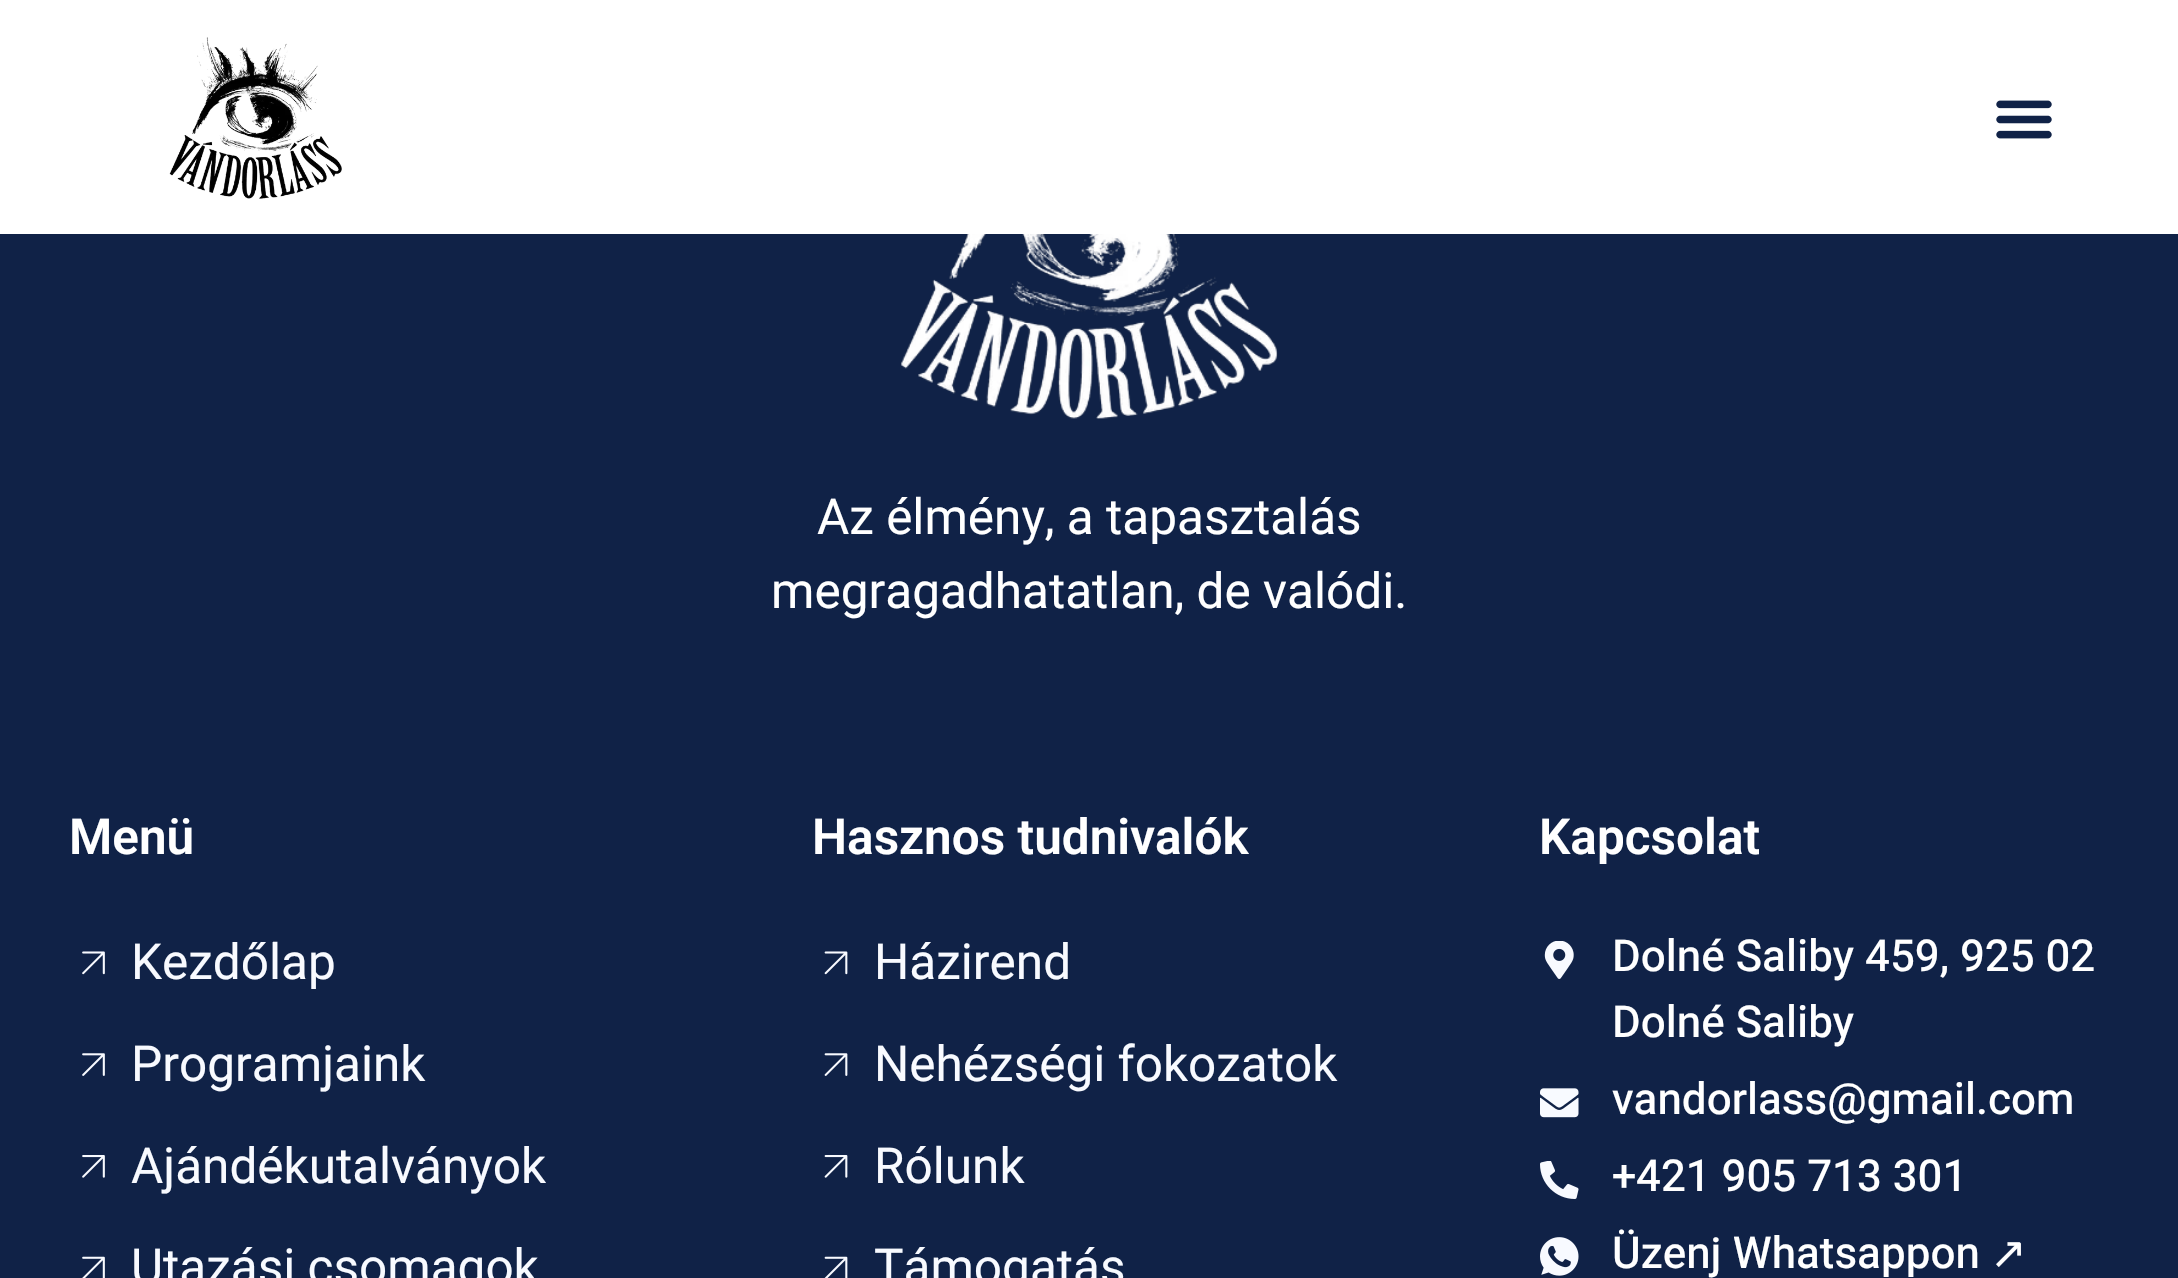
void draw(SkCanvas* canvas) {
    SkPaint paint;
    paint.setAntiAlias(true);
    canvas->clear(0xFF102247);
    paint.setColor(0xFFFFFFFF);
    canvas->drawRect(SkRect::MakeXYWH(0, 0, 2178, 234), paint);
    canvas->drawImageRect(SkImages::DeferredFromEncodedData(SkData::MakeFromFileName("img1.png")), SkRect::MakeXYWH(169, 37, 173, 162), SkSamplingOptions());
    canvas->drawImageRect(SkImages::DeferredFromEncodedData(SkData::MakeFromFileName("img2.png")), SkRect::MakeXYWH(1996, 100, 56, 39), SkSamplingOptions());
    canvas->drawImageRect(SkImages::DeferredFromEncodedData(SkData::MakeFromFileName("img3.png")), SkRect::MakeXYWH(900, 234, 378, 185), SkSamplingOptions());
    SkFont font1(fontMgr->matchFamilyStyle("Roboto", SkFontStyle::Normal()), 49.5f);
    font1.setSubpixel(true);
    canvas->drawString("Az élmény, a tapasztalás", 817, 534, font1, paint);
    canvas->drawString("megragadhatatlan, de valódi.", 771, 608, font1, paint);
    SkFont font2(fontMgr->matchFamilyStyle("Roboto", SkFontStyle(600, SkFontStyle::kNormal_Width, SkFontStyle::kUpright_Slant)), 49.5f);
    font2.setSubpixel(true);
    canvas->drawString("Menü", 69, 854, font2, paint);
    canvas->drawImageRect(SkImages::DeferredFromEncodedData(SkData::MakeFromFileName("img4.png")), SkRect::MakeXYWH(82, 951, 23, 24), SkSamplingOptions());
    paint.setColor(0xFFF8FAFF);
    canvas->drawString("Kezdőlap", 131, 979, font1, paint);
    canvas->drawImageRect(SkImages::DeferredFromEncodedData(SkData::MakeFromFileName("img5.png")), SkRect::MakeXYWH(82, 1053, 23, 23), SkSamplingOptions());
    canvas->drawString("Programjaink", 131, 1081, font1, paint);
    canvas->drawImageRect(SkImages::DeferredFromEncodedData(SkData::MakeFromFileName("img6.png")), SkRect::MakeXYWH(82, 1155, 23, 23), SkSamplingOptions());
    canvas->drawString("Ajándékutalványok", 131, 1183, font1, paint);
    canvas->drawImageRect(SkImages::DeferredFromEncodedData(SkData::MakeFromFileName("img7.png")), SkRect::MakeXYWH(82, 1256, 23, 22), SkSamplingOptions());
    canvas->drawString("Utazási csomagok", 131, 1284, font1, paint);
    paint.setColor(0xFFFFFFFF);
    canvas->drawString("Hasznos tudnivalók", 812, 854, font2, paint);
    canvas->drawImageRect(SkImages::DeferredFromEncodedData(SkData::MakeFromFileName("img8.png")), SkRect::MakeXYWH(824, 951, 24, 24), SkSamplingOptions());
    paint.setColor(0xFFF8FAFF);
    canvas->drawString("Házirend", 874, 979, font1, paint);
    canvas->drawImageRect(SkImages::DeferredFromEncodedData(SkData::MakeFromFileName("img9.png")), SkRect::MakeXYWH(824, 1053, 24, 23), SkSamplingOptions());
    canvas->drawString("Nehézségi fokozatok", 874, 1081, font1, paint);
    canvas->drawImageRect(SkImages::DeferredFromEncodedData(SkData::MakeFromFileName("img10.png")), SkRect::MakeXYWH(824, 1155, 24, 23), SkSamplingOptions());
    canvas->drawString("Rólunk", 874, 1183, font1, paint);
    canvas->drawImageRect(SkImages::DeferredFromEncodedData(SkData::MakeFromFileName("img11.png")), SkRect::MakeXYWH(824, 1256, 24, 22), SkSamplingOptions());
    canvas->drawString("Támogatás", 874, 1284, font1, paint);
    paint.setColor(0xFFFFFFFF);
    canvas->drawString("Kapcsolat", 1539, 854, font2, paint);
    canvas->drawImageRect(SkImages::DeferredFromEncodedData(SkData::MakeFromFileName("img12.png")), SkRect::MakeXYWH(1544, 941, 30, 38), SkSamplingOptions());
    SkFont font3(fontMgr->matchFamilyStyle("Heebo", SkFontStyle(500, SkFontStyle::kNormal_Width, SkFontStyle::kUpright_Slant)), 44);
    font3.setSubpixel(true);
    canvas->drawString("Dolné Saliby 459, 925 02", 1612, 971, font3, paint);
    canvas->drawString("Dolné Saliby", 1612, 1037, font3, paint);
    canvas->drawImageRect(SkImages::DeferredFromEncodedData(SkData::MakeFromFileName("img13.png")), SkRect::MakeXYWH(1540, 1088, 39, 30), SkSamplingOptions());
    canvas->drawString("vandorlass@gmail.com", 1612, 1114, font3, paint);
    canvas->drawImageRect(SkImages::DeferredFromEncodedData(SkData::MakeFromFileName("img14.png")), SkRect::MakeXYWH(1540, 1161, 39, 38), SkSamplingOptions());
    canvas->drawString("+421 905 713 301", 1612, 1191, font3, paint);
    canvas->drawImageRect(SkImages::DeferredFromEncodedData(SkData::MakeFromFileName("img15.png")), SkRect::MakeXYWH(1540, 1237, 39, 39), SkSamplingOptions());
    canvas->drawString("Üzenj Whatsappon", 1612, 1268, font3, paint);
    SkFont font4(fontMgr->matchFamilyStyle("DejaVu Sans", SkFontStyle::Normal()), 44);
    font4.setSubpixel(true);
    canvas->drawString("↗", 1990, 1268, font4, paint);
}
